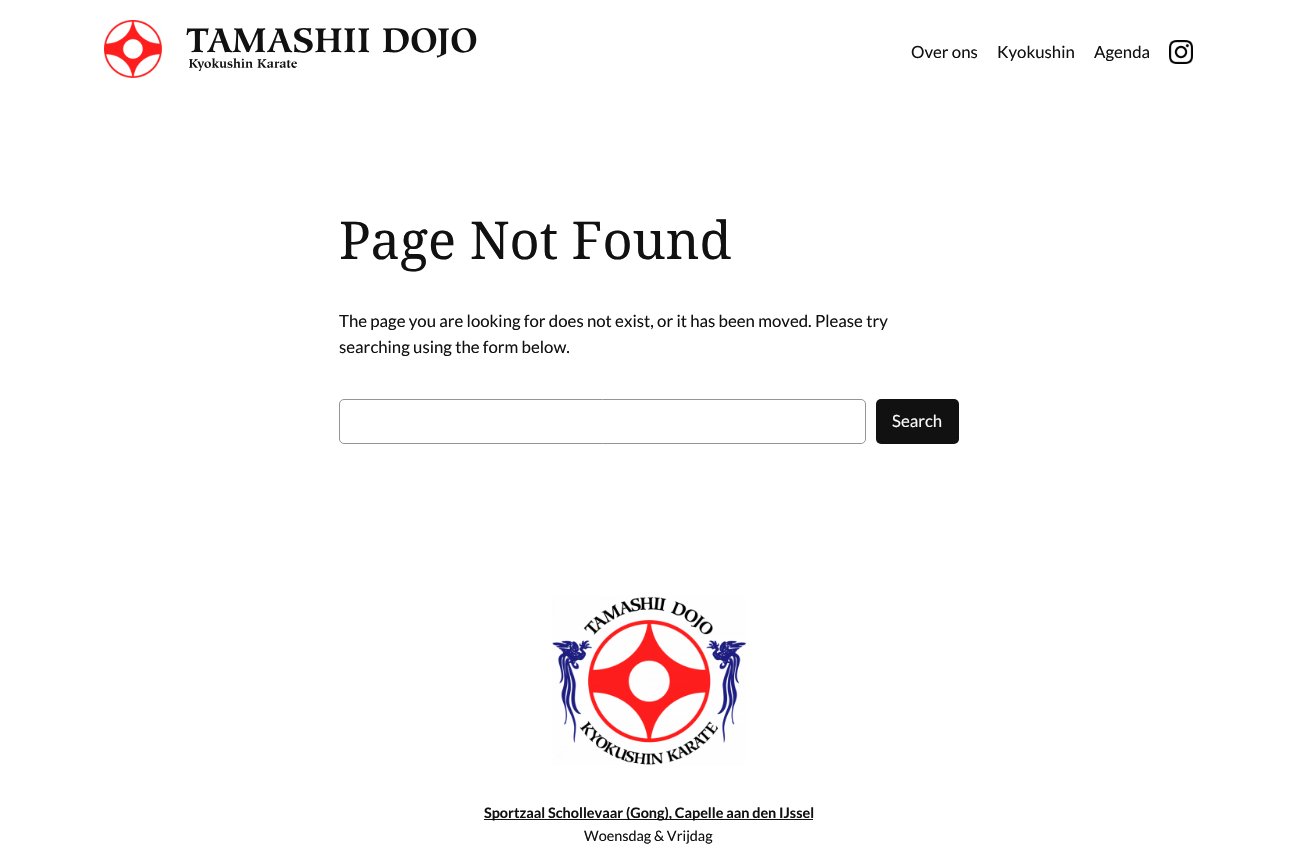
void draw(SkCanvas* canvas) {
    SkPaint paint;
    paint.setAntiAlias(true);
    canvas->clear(0xFFFFFFFF);
    canvas->drawImageRect(SkImages::DeferredFromEncodedData(SkData::MakeFromFileName("img1.png")), SkRect::MakeXYWH(104, 20, 373, 58), SkSamplingOptions());
    SkFont font1(fontMgr->matchFamilyStyle("Lato", SkFontStyle::Normal()), 16.8f);
    font1.setSubpixel(true);
    paint.setColor(0xFF111111);
    canvas->drawString("Over ons", 911, 58, font1, paint);
    canvas->drawString("Kyokushin", 997, 58, font1, paint);
    canvas->drawString("Agenda", 1094, 58, font1, paint);
    canvas->drawImageRect(SkImages::DeferredFromEncodedData(SkData::MakeFromFileName("img2.png")), SkRect::MakeXYWH(1169, 40, 24, 24), SkSamplingOptions());
    SkFont font2(fontMgr->matchFamilyStyle("Noto Serif", SkFontStyle::Normal()), 52.25f);
    font2.setSubpixel(true);
    canvas->drawString("Page Not Found", 339, 259, font2, paint);
    canvas->drawString("The page you are looking for does not exist, or it has been moved. Please try", 339, 327, font1, paint);
    canvas->drawString("searching using the form below.", 339, 353, font1, paint);
    paint.setStyle(SkPaint::kStroke_Style);
    paint.setStrokeWidth(1);
    paint.setColor(0xFF949494);
    canvas->drawRoundRect(SkRect::MakeXYWH(339.5f, 399.5f, 526, 44), 4.5f, 4.5f, paint);
    paint.setStyle(SkPaint::kFill_Style);
    paint.setColor(0xFF111111);
    canvas->drawRoundRect(SkRect::MakeXYWH(876, 399, 83, 45), 5, 5, paint);
    paint.setColor(0xFFF9F9F9);
    canvas->drawString("Search", 892, 427, font1, paint);
    canvas->drawImageRect(SkImages::DeferredFromEncodedData(SkData::MakeFromFileName("img3.png")), SkRect::MakeXYWH(552, 596, 194, 169), SkSamplingOptions());
    paint.setColor(0xFF111111);
    canvas->drawRect(SkRect::MakeXYWH(484, 819, 329, 1), paint);
    SkFont font3(fontMgr->matchFamilyStyle("Lato", SkFontStyle::Bold()), 14.4f);
    font3.setSubpixel(true);
    canvas->drawString("Sportzaal Schollevaar (Gong), Capelle aan den IJssel", 484, 818, font3, paint);
    SkFont font4(fontMgr->matchFamilyStyle("Lato", SkFontStyle::Normal()), 14.4f);
    font4.setSubpixel(true);
    canvas->drawString("Woensdag & Vrijdag", 584, 841, font4, paint);
}
